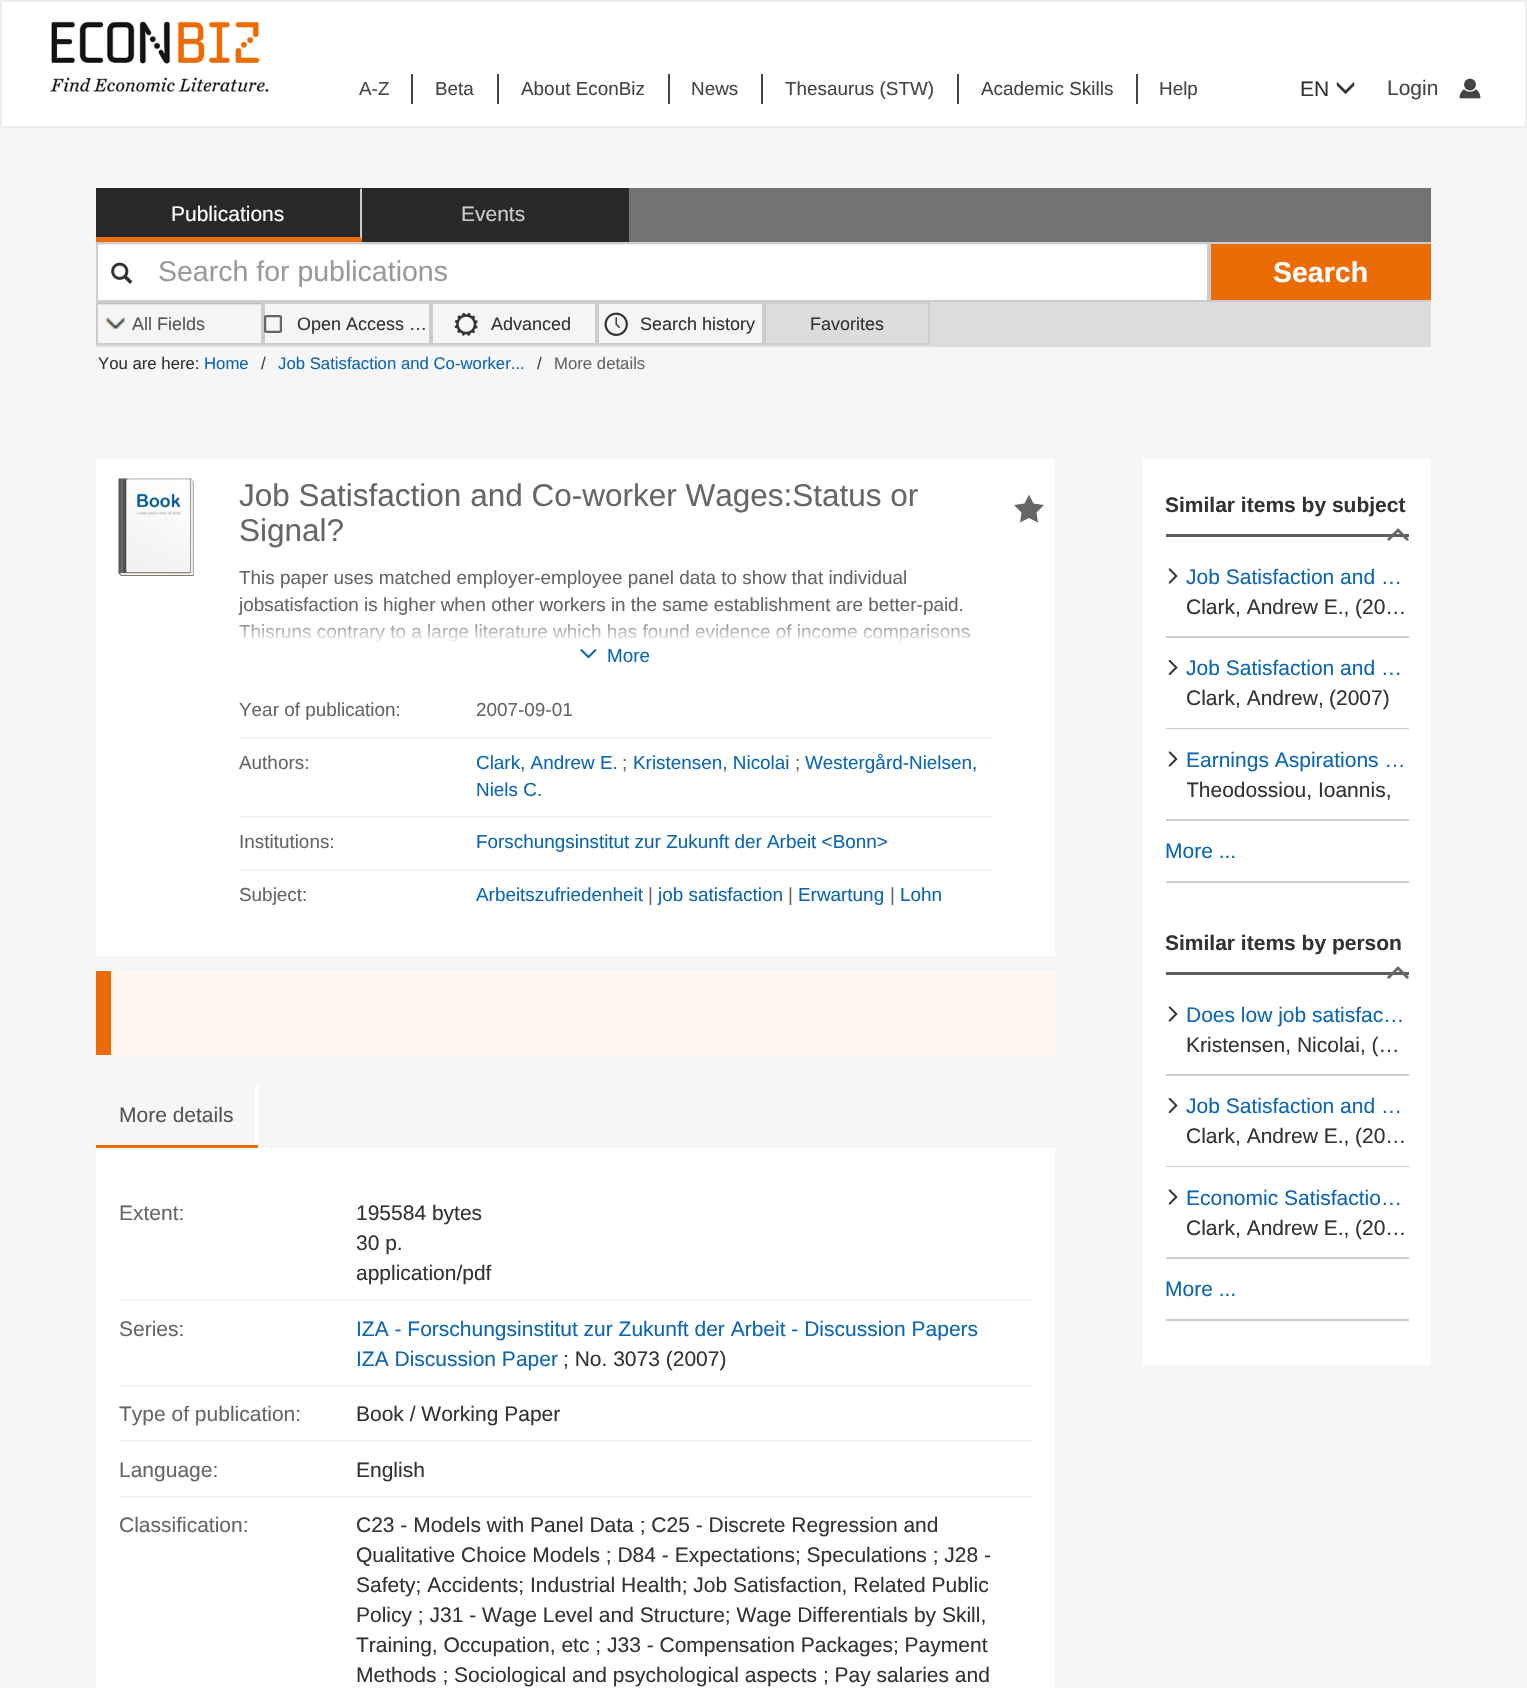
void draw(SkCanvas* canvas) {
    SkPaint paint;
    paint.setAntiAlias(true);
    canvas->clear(0xFFF6F6F6);
    paint.setColor(0xFFFFFFFF);
    canvas->drawRect(SkRect::MakeXYWH(1, 1, 1525, 126), paint);
    paint.setStyle(SkPaint::kStroke_Style);
    paint.setStrokeWidth(2);
    paint.setColor(0xFFEEEEEE);
    canvas->drawRect(SkRect::MakeXYWH(1, 1, 1525, 126), paint);
    canvas->drawImageRect(SkImages::DeferredFromEncodedData(SkData::MakeFromFileName("img1.png")), SkRect::MakeXYWH(50, 21, 219, 72), SkSamplingOptions());
    SkFont font1(fontMgr->matchFamilyStyle("Liberation Sans", SkFontStyle::Normal()), 18.9f);
    font1.setSubpixel(true);
    paint.setStyle(SkPaint::kFill_Style);
    paint.setColor(0xFF444444);
    canvas->drawString("A-Z", 359, 95, font1, paint);
    canvas->drawRect(SkRect::MakeXYWH(411, 74, 2, 30), paint);
    canvas->drawString("Beta", 435, 95, font1, paint);
    canvas->drawRect(SkRect::MakeXYWH(497, 74, 2, 30), paint);
    canvas->drawString("About EconBiz", 521, 95, font1, paint);
    canvas->drawRect(SkRect::MakeXYWH(668, 74, 2, 30), paint);
    canvas->drawString("News", 691, 95, font1, paint);
    canvas->drawRect(SkRect::MakeXYWH(761, 74, 2, 30), paint);
    canvas->drawString("Thesaurus (STW)", 785, 95, font1, paint);
    canvas->drawRect(SkRect::MakeXYWH(957, 74, 2, 30), paint);
    canvas->drawString("Academic Skills", 981, 95, font1, paint);
    canvas->drawRect(SkRect::MakeXYWH(1136, 74, 2, 30), paint);
    canvas->drawString("Help", 1159, 95, font1, paint);
    SkFont font2(fontMgr->matchFamilyStyle("Liberation Sans", SkFontStyle::Normal()), 21);
    font2.setSubpixel(true);
    paint.setColor(0xFF333333);
    canvas->drawString("EN", 1300, 96, font2, paint);
    canvas->drawImageRect(SkImages::DeferredFromEncodedData(SkData::MakeFromFileName("img2.png")), SkRect::MakeXYWH(1336, 82, 19, 12), SkSamplingOptions());
    paint.setColor(0xFF444444);
    canvas->drawString("Login", 1387, 95, font2, paint);
    canvas->drawImageRect(SkImages::DeferredFromEncodedData(SkData::MakeFromFileName("img3.png")), SkRect::MakeXYWH(1459, 78, 22, 21), SkSamplingOptions());
    paint.setColor(0xFF737373);
    canvas->drawRect(SkRect::MakeXYWH(360, 188, 1071, 54), paint);
    paint.setColor(0xFF292929);
    canvas->drawRect(SkRect::MakeXYWH(96, 189, 264, 48), paint);
    canvas->drawPath(SkPathBuilder().moveTo(96, 188).lineTo(363, 188).lineTo(360, 189).lineTo(96, 189).close().detach(), paint);
    paint.setColor(0xFFCCCCCC);
    canvas->drawPath(SkPathBuilder().moveTo(363, 188).lineTo(363, 242).lineTo(360, 237).lineTo(360, 189).close().detach(), paint);
    paint.setColor(0xFFEB6B05);
    canvas->drawPath(SkPathBuilder().moveTo(363, 242).lineTo(96, 242).lineTo(96, 237).lineTo(360, 237).close().detach(), paint);
    paint.setColor(0xFFFFFFFF);
    canvas->drawString("Publications", 171, 221, font2, paint);
    paint.setColor(0xFF292929);
    canvas->drawRect(SkRect::MakeXYWH(362, 190, 264, 47), paint);
    canvas->drawRect(SkRect::MakeXYWH(362, 188, 267, 2), paint);
    canvas->drawRect(SkRect::MakeXYWH(626, 188, 3, 54), paint);
    canvas->drawRect(SkRect::MakeXYWH(362, 237, 267, 5), paint);
    paint.setColor(0xFFCCCCCC);
    canvas->drawString("Events", 461, 221, font2, paint);
    paint.setColor(0xFFFFFFFF);
    canvas->drawRect(SkRect::MakeXYWH(98, 245, 1109, 55), paint);
    paint.setColor(0xFFECECEC);
    canvas->drawRect(SkRect::MakeXYWH(98, 244, 1110, 1), paint);
    paint.setStyle(SkPaint::kStroke_Style);
    paint.setColor(0xFFCCCCCC);
    canvas->drawRect(SkRect::MakeXYWH(97, 243, 1111, 58), paint);
    canvas->drawImageRect(SkImages::DeferredFromEncodedData(SkData::MakeFromFileName("img4.png")), SkRect::MakeXYWH(111, 262, 22, 22), SkSamplingOptions());
    SkFont font3(fontMgr->matchFamilyStyle("Liberation Sans", SkFontStyle::Normal()), 28.5f);
    font3.setSubpixel(true);
    paint.setStyle(SkPaint::kFill_Style);
    paint.setColor(0xFF999999);
    canvas->drawString("Search for publications", 158, 281, font3, paint);
    paint.setColor(0xFFEB6B05);
    canvas->drawRect(SkRect::MakeXYWH(1211, 244, 220, 56), paint);
    paint.setColor(0xFFCCCCCC);
    canvas->drawRect(SkRect::MakeXYWH(1209, 242, 222, 2), paint);
    canvas->drawRect(SkRect::MakeXYWH(1209, 300, 222, 2), paint);
    canvas->drawRect(SkRect::MakeXYWH(1209, 242, 2, 60), paint);
    SkFont font4(fontMgr->matchFamilyStyle("Liberation Sans", SkFontStyle::Bold()), 28.5f);
    font4.setSubpixel(true);
    paint.setColor(0xFFFFFFFF);
    canvas->drawString("Search", 1273, 282, font4, paint);
    paint.setColor(0xFFDCDCDC);
    canvas->drawRect(SkRect::MakeXYWH(96, 302, 1335, 45), paint);
    paint.setColor(0xFFF5F5F5);
    canvas->drawRect(SkRect::MakeXYWH(97, 303, 165, 41), paint);
    paint.setStyle(SkPaint::kStroke_Style);
    paint.setColor(0xFFCCCCCC);
    canvas->drawRect(SkRect::MakeXYWH(97, 303, 165, 41), paint);
    canvas->drawImageRect(SkImages::DeferredFromEncodedData(SkData::MakeFromFileName("img5.png")), SkRect::MakeXYWH(106, 317, 19, 12), SkSamplingOptions());
    paint.setStyle(SkPaint::kFill_Style);
    paint.setColor(0x12000000);
    canvas->drawRect(SkRect::MakeXYWH(98, 303, 163, 2), paint);
    SkFont font5(fontMgr->matchFamilyStyle("Liberation Sans", SkFontStyle::Normal()), 18);
    font5.setSubpixel(true);
    paint.setColor(0xFF555555);
    canvas->drawString("All Fields", 132, 330, font5, paint);
    paint.setColor(0xFFF5F5F5);
    canvas->drawRect(SkRect::MakeXYWH(264, 303, 166, 41), paint);
    paint.setStyle(SkPaint::kStroke_Style);
    paint.setColor(0xFFCCCCCC);
    canvas->drawRect(SkRect::MakeXYWH(264, 303, 166, 41), paint);
    canvas->drawImageRect(SkImages::DeferredFromEncodedData(SkData::MakeFromFileName("img6.png")), SkRect::MakeXYWH(264, 315, 18, 18), SkSamplingOptions());
    paint.setStyle(SkPaint::kFill_Style);
    paint.setColor(0xFF333333);
    canvas->drawString("Open Access …", 297, 330, font5, paint);
    paint.setColor(0xFFF5F5F5);
    canvas->drawRect(SkRect::MakeXYWH(432, 303, 164, 41), paint);
    paint.setStyle(SkPaint::kStroke_Style);
    paint.setColor(0xFFCCCCCC);
    canvas->drawRect(SkRect::MakeXYWH(432, 303, 164, 41), paint);
    canvas->drawImageRect(SkImages::DeferredFromEncodedData(SkData::MakeFromFileName("img7.png")), SkRect::MakeXYWH(454, 312, 24, 24), SkSamplingOptions());
    paint.setStyle(SkPaint::kFill_Style);
    paint.setColor(0xFF333333);
    canvas->drawString("Advanced", 491, 330, font5, paint);
    paint.setColor(0xFFF5F5F5);
    canvas->drawRect(SkRect::MakeXYWH(598, 303, 165, 41), paint);
    paint.setStyle(SkPaint::kStroke_Style);
    paint.setColor(0xFFCCCCCC);
    canvas->drawRect(SkRect::MakeXYWH(598, 303, 165, 41), paint);
    canvas->drawImageRect(SkImages::DeferredFromEncodedData(SkData::MakeFromFileName("img8.png")), SkRect::MakeXYWH(604, 312, 24, 24), SkSamplingOptions());
    paint.setStyle(SkPaint::kFill_Style);
    paint.setColor(0xFF333333);
    canvas->drawString("Search history", 640, 330, font5, paint);
    paint.setStyle(SkPaint::kStroke_Style);
    paint.setColor(0xFFCCCCCC);
    canvas->drawRect(SkRect::MakeXYWH(765, 303, 164, 41), paint);
    paint.setStyle(SkPaint::kFill_Style);
    paint.setColor(0xFF333333);
    canvas->drawString("Favorites", 810, 330, font5, paint);
    SkFont font6(fontMgr->matchFamilyStyle("Liberation Sans", SkFontStyle::Normal()), 16.75f);
    font6.setSubpixel(true);
    canvas->drawString("You are here:", 98, 369, font6, paint);
    paint.setColor(0xFF0C66B5);
    canvas->drawString("Home", 204, 369, font6, paint);
    paint.setColor(0xFF444444);
    canvas->drawString("/", 261, 369, font6, paint);
    paint.setColor(0xFF0C66B5);
    canvas->drawString("Job Satisfaction and Co-worker...", 278, 369, font6, paint);
    paint.setColor(0xFF444444);
    canvas->drawString("/", 537, 369, font6, paint);
    paint.setColor(0xFF666666);
    canvas->drawString("More details", 554, 369, font6, paint);
    paint.setColor(0xFFFFFFFF);
    canvas->drawRect(SkRect::MakeXYWH(96, 459, 959, 497), paint);
    canvas->drawImageRect(SkImages::DeferredFromEncodedData(SkData::MakeFromFileName("img9.png")), SkRect::MakeXYWH(118, 478, 76, 98), SkSamplingOptions());
    SkFont font7(fontMgr->matchFamilyStyle("Liberation Sans", SkFontStyle::Normal()), 31.5f);
    font7.setSubpixel(true);
    paint.setColor(0xFF666666);
    canvas->drawString("Job Satisfaction and Co-worker Wages:Status or", 239, 506, font7, paint);
    canvas->drawString("Signal?", 239, 541, font7, paint);
    canvas->drawString("This paper uses matched employer-employee panel data to show that individual", 239, 584, font1, paint);
    canvas->drawString("jobsatisfaction is higher when other workers in the same establishment are better-paid.", 239, 611, font1, paint);
    canvas->drawString("Thisruns contrary to a large literature which has found evidence of income comparisons", 239, 638, font1, paint);
    {
        const SkColor colors[] = {0x00FFFFFF, 0xFFFFFFFF};
        const float stops[] = {0.3f, 1};
        const SkPoint ends[] = {{615, 606}, {615, 644}};
        paint.setShader(SkGradientShader::MakeLinear(ends, colors, stops, 2, SkTileMode::kClamp));
        paint.setAlpha(255);
    }
    canvas->drawRect(SkRect::MakeXYWH(239, 624, 730, 18), paint);
    canvas->drawImageRect(SkImages::DeferredFromEncodedData(SkData::MakeFromFileName("img10.png")), SkRect::MakeXYWH(580, 649, 17, 10), SkSamplingOptions());
    paint.setShader(nullptr);
    paint.setColor(0xFF0C66B5);
    canvas->drawString("More", 607, 662, font1, paint);
    paint.setColor(0xFFF3F3F3);
    canvas->drawRect(SkRect::MakeXYWH(239, 737, 754, 2), paint);
    paint.setColor(0xFF666666);
    canvas->drawString("Year of publication:", 239, 716, font1, paint);
    canvas->drawString("2007-09-01", 476, 716, font1, paint);
    paint.setColor(0xFFF3F3F3);
    canvas->drawRect(SkRect::MakeXYWH(239, 816, 754, 2), paint);
    paint.setColor(0xFF666666);
    canvas->drawString("Authors:", 239, 769, font1, paint);
    paint.setColor(0xFF0C66B5);
    canvas->drawString("Clark, Andrew E.", 476, 769, font1, paint);
    paint.setColor(0xFF666666);
    canvas->drawString(";", 622, 769, font1, paint);
    paint.setColor(0xFF0C66B5);
    canvas->drawString("Kristensen, Nicolai", 633, 769, font1, paint);
    paint.setColor(0xFF666666);
    canvas->drawString(";", 795, 769, font1, paint);
    paint.setColor(0xFF0C66B5);
    canvas->drawString("Westergård-Nielsen,", 805, 769, font1, paint);
    canvas->drawString("Niels C.", 476, 796, font1, paint);
    paint.setColor(0xFFF3F3F3);
    canvas->drawRect(SkRect::MakeXYWH(239, 869, 754, 2), paint);
    paint.setColor(0xFF666666);
    canvas->drawString("Institutions:", 239, 848, font1, paint);
    paint.setColor(0xFF0C66B5);
    canvas->drawString("Forschungsinstitut zur Zukunft der Arbeit <Bonn>", 476, 848, font1, paint);
    paint.setColor(0xFF666666);
    canvas->drawString("Subject:", 239, 901, font1, paint);
    paint.setColor(0xFF0C66B5);
    canvas->drawString("Arbeitszufriedenheit", 476, 901, font1, paint);
    paint.setColor(0xFF666666);
    canvas->drawString("|", 648, 901, font1, paint);
    paint.setColor(0xFF0C66B5);
    canvas->drawString("job satisfaction", 658, 901, font1, paint);
    paint.setColor(0xFF666666);
    canvas->drawString("|", 788, 901, font1, paint);
    paint.setColor(0xFF0C66B5);
    canvas->drawString("Erwartung", 798, 901, font1, paint);
    paint.setColor(0xFF666666);
    canvas->drawString("|", 890, 901, font1, paint);
    paint.setColor(0xFF0C66B5);
    canvas->drawString("Lohn", 900, 901, font1, paint);
    paint.setColor(0xFF666666);
    canvas->drawPath(SkPathBuilder().moveTo(1029, 494.5f).lineTo(1024.5f, 503.5f).lineTo(1014, 505).lineTo(1021.5f, 512.5f).lineTo(1020, 522.5f).lineTo(1029, 518).lineTo(1038, 522.5f).lineTo(1036.5f, 512.5f).lineTo(1044, 505).lineTo(1033.5f, 503.5f).close().detach(), paint);
    paint.setColor(0xFFFFF7F0);
    canvas->drawRect(SkRect::MakeXYWH(111, 971, 944, 84), paint);
    paint.setColor(0xFFEB6B05);
    canvas->drawRect(SkRect::MakeXYWH(96, 971, 15, 84), paint);
    paint.setColor(0xFFFFFFFF);
    canvas->drawRect(SkRect::MakeXYWH(255, 1085, 3, 60), paint);
    paint.setColor(0xFFEB6B05);
    canvas->drawRect(SkRect::MakeXYWH(96, 1145, 162, 3), paint);
    paint.setColor(0xFF555555);
    canvas->drawString("More details", 119, 1122, font2, paint);
    paint.setColor(0xFFFFFFFF);
    canvas->drawRect(SkRect::MakeXYWH(96, 1148, 959, 540), paint);
    paint.setColor(0xFFF3F3F3);
    canvas->drawRect(SkRect::MakeXYWH(119, 1299, 913, 2), paint);
    paint.setColor(0xFF666666);
    canvas->drawString("Extent:", 119, 1220, font2, paint);
    paint.setColor(0xFF333333);
    canvas->drawString("195584 bytes", 356, 1220, font2, paint);
    canvas->drawString("30 p.", 356, 1250, font2, paint);
    canvas->drawString("application/pdf", 356, 1280, font2, paint);
    paint.setColor(0xFFF3F3F3);
    canvas->drawRect(SkRect::MakeXYWH(119, 1385, 913, 2), paint);
    paint.setColor(0xFF666666);
    canvas->drawString("Series:", 119, 1336, font2, paint);
    paint.setColor(0xFF0C66B5);
    canvas->drawString("IZA - Forschungsinstitut zur Zukunft der Arbeit - Discussion Papers", 356, 1336, font2, paint);
    canvas->drawString("IZA Discussion Paper", 356, 1366, font2, paint);
    paint.setColor(0xFF333333);
    canvas->drawString("; No. 3073 (2007)", 563, 1366, font2, paint);
    paint.setColor(0xFFF3F3F3);
    canvas->drawRect(SkRect::MakeXYWH(119, 1440, 913, 2), paint);
    paint.setColor(0xFF666666);
    canvas->drawString("Type of publication:", 119, 1421, font2, paint);
    paint.setColor(0xFF333333);
    canvas->drawString("Book / Working Paper", 356, 1421, font2, paint);
    paint.setColor(0xFFF3F3F3);
    canvas->drawRect(SkRect::MakeXYWH(119, 1496, 913, 2), paint);
    paint.setColor(0xFF666666);
    canvas->drawString("Language:", 119, 1477, font2, paint);
    paint.setColor(0xFF333333);
    canvas->drawString("English", 356, 1477, font2, paint);
    paint.setColor(0xFF666666);
    canvas->drawString("Classification:", 119, 1532, font2, paint);
    paint.setColor(0xFF333333);
    canvas->drawString("C23 - Models with Panel Data ; C25 - Discrete Regression and", 356, 1532, font2, paint);
    canvas->drawString("Qualitative Choice Models ; D84 - Expectations; Speculations ; J28 -", 356, 1562, font2, paint);
    canvas->drawString("Safety; Accidents; Industrial Health; Job Satisfaction, Related Public", 356, 1592, font2, paint);
    canvas->drawString("Policy ; J31 - Wage Level and Structure; Wage Differentials by Skill,", 356, 1622, font2, paint);
    canvas->drawString("Training, Occupation, etc ; J33 - Compensation Packages; Payment", 356, 1652, font2, paint);
    canvas->drawString("Methods ; Sociological and psychological aspects ; Pay salaries and", 356, 1682, font2, paint);
    paint.setColor(0xFFFFFFFF);
    canvas->drawRect(SkRect::MakeXYWH(1143, 459, 288, 906), paint);
    paint.setColor(0xFF5E5E5E);
    canvas->drawRect(SkRect::MakeXYWH(1166, 534, 243, 3), paint);
    SkFont font8(fontMgr->matchFamilyStyle("Liberation Sans", SkFontStyle::Bold()), 21);
    font8.setSubpixel(true);
    paint.setColor(0xFF333333);
    canvas->drawString("Similar items by subject", 1165, 512, font8, paint);
    canvas->drawImageRect(SkImages::DeferredFromEncodedData(SkData::MakeFromFileName("img11.png")), SkRect::MakeXYWH(1387, 528, 22, 13), SkSamplingOptions());
    paint.setColor(0xFFCCCCCC);
    canvas->drawRect(SkRect::MakeXYWH(1166, 636, 243, 2), paint);
    canvas->drawImageRect(SkImages::DeferredFromEncodedData(SkData::MakeFromFileName("img12.png")), SkRect::MakeXYWH(1168, 568, 10, 16), SkSamplingOptions());
    paint.setColor(0xFF0C66B5);
    canvas->drawString("Job Satisfaction and …", 1186, 584, font2, paint);
    canvas->save();
    canvas->clipRect(SkRect::MakeXYWH(1187, 591, 222, 30));
    paint.setColor(0xFF333333);
    canvas->drawString("Clark, Andrew E.,", 1186, 614, font2, paint);
    canvas->restore();
    canvas->drawString("(20…", 1355, 614, font2, paint);
    paint.setColor(0xFFCCCCCC);
    canvas->drawRect(SkRect::MakeXYWH(1166, 728, 243, 1), paint);
    canvas->drawImageRect(SkImages::DeferredFromEncodedData(SkData::MakeFromFileName("img13.png")), SkRect::MakeXYWH(1168, 660, 10, 15), SkSamplingOptions());
    paint.setColor(0xFF0C66B5);
    canvas->drawString("Job Satisfaction and …", 1186, 675, font2, paint);
    canvas->save();
    canvas->clipRect(SkRect::MakeXYWH(1187, 683, 222, 30));
    paint.setColor(0xFF333333);
    canvas->drawString("Clark, Andrew,", 1186, 705, font2, paint);
    canvas->restore();
    canvas->drawString("(2007)", 1329, 705, font2, paint);
    paint.setColor(0xFFCCCCCC);
    canvas->drawRect(SkRect::MakeXYWH(1166, 819, 243, 2), paint);
    canvas->drawImageRect(SkImages::DeferredFromEncodedData(SkData::MakeFromFileName("img12.png")), SkRect::MakeXYWH(1168, 751, 10, 16), SkSamplingOptions());
    paint.setColor(0xFF0C66B5);
    canvas->drawString("Earnings Aspirations …", 1186, 767, font2, paint);
    canvas->save();
    canvas->clipRect(SkRect::MakeXYWH(1187, 774, 222, 30));
    paint.setColor(0xFF333333);
    canvas->drawString("Theodossiou, Ioannis,", 1186, 797, font2, paint);
    canvas->restore();
    paint.setColor(0xFFCCCCCC);
    canvas->drawRect(SkRect::MakeXYWH(1166, 881, 243, 2), paint);
    paint.setColor(0xFF0C66B5);
    canvas->drawString("More ...", 1165, 858, font2, paint);
    paint.setColor(0xFF5E5E5E);
    canvas->drawRect(SkRect::MakeXYWH(1166, 972, 243, 3), paint);
    paint.setColor(0xFF333333);
    canvas->drawString("Similar items by person", 1165, 950, font8, paint);
    canvas->drawImageRect(SkImages::DeferredFromEncodedData(SkData::MakeFromFileName("img11.png")), SkRect::MakeXYWH(1387, 966, 22, 13), SkSamplingOptions());
    paint.setColor(0xFFCCCCCC);
    canvas->drawRect(SkRect::MakeXYWH(1166, 1074, 243, 2), paint);
    canvas->drawImageRect(SkImages::DeferredFromEncodedData(SkData::MakeFromFileName("img12.png")), SkRect::MakeXYWH(1168, 1006, 10, 16), SkSamplingOptions());
    paint.setColor(0xFF0C66B5);
    canvas->drawString("Does low job satisfac…", 1186, 1022, font2, paint);
    paint.setColor(0xFF333333);
    canvas->drawString("Kristensen, Nicolai, (…", 1186, 1052, font2, paint);
    paint.setColor(0xFFCCCCCC);
    canvas->drawRect(SkRect::MakeXYWH(1166, 1166, 243, 1), paint);
    canvas->drawImageRect(SkImages::DeferredFromEncodedData(SkData::MakeFromFileName("img13.png")), SkRect::MakeXYWH(1168, 1098, 10, 15), SkSamplingOptions());
    paint.setColor(0xFF0C66B5);
    canvas->drawString("Job Satisfaction and …", 1186, 1113, font2, paint);
    canvas->save();
    canvas->clipRect(SkRect::MakeXYWH(1187, 1121, 222, 30));
    paint.setColor(0xFF333333);
    canvas->drawString("Clark, Andrew E.,", 1186, 1143, font2, paint);
    canvas->restore();
    canvas->drawString("(20…", 1355, 1143, font2, paint);
    paint.setColor(0xFFCCCCCC);
    canvas->drawRect(SkRect::MakeXYWH(1166, 1257, 243, 2), paint);
    canvas->drawImageRect(SkImages::DeferredFromEncodedData(SkData::MakeFromFileName("img12.png")), SkRect::MakeXYWH(1168, 1189, 10, 16), SkSamplingOptions());
    paint.setColor(0xFF0C66B5);
    canvas->drawString("Economic Satisfactio…", 1186, 1205, font2, paint);
    canvas->save();
    canvas->clipRect(SkRect::MakeXYWH(1187, 1212, 222, 30));
    paint.setColor(0xFF333333);
    canvas->drawString("Clark, Andrew E.,", 1186, 1235, font2, paint);
    canvas->restore();
    canvas->drawString("(20…", 1355, 1235, font2, paint);
    paint.setColor(0xFFCCCCCC);
    canvas->drawRect(SkRect::MakeXYWH(1166, 1319, 243, 2), paint);
    paint.setColor(0xFF0C66B5);
    canvas->drawString("More ...", 1165, 1296, font2, paint);
}
